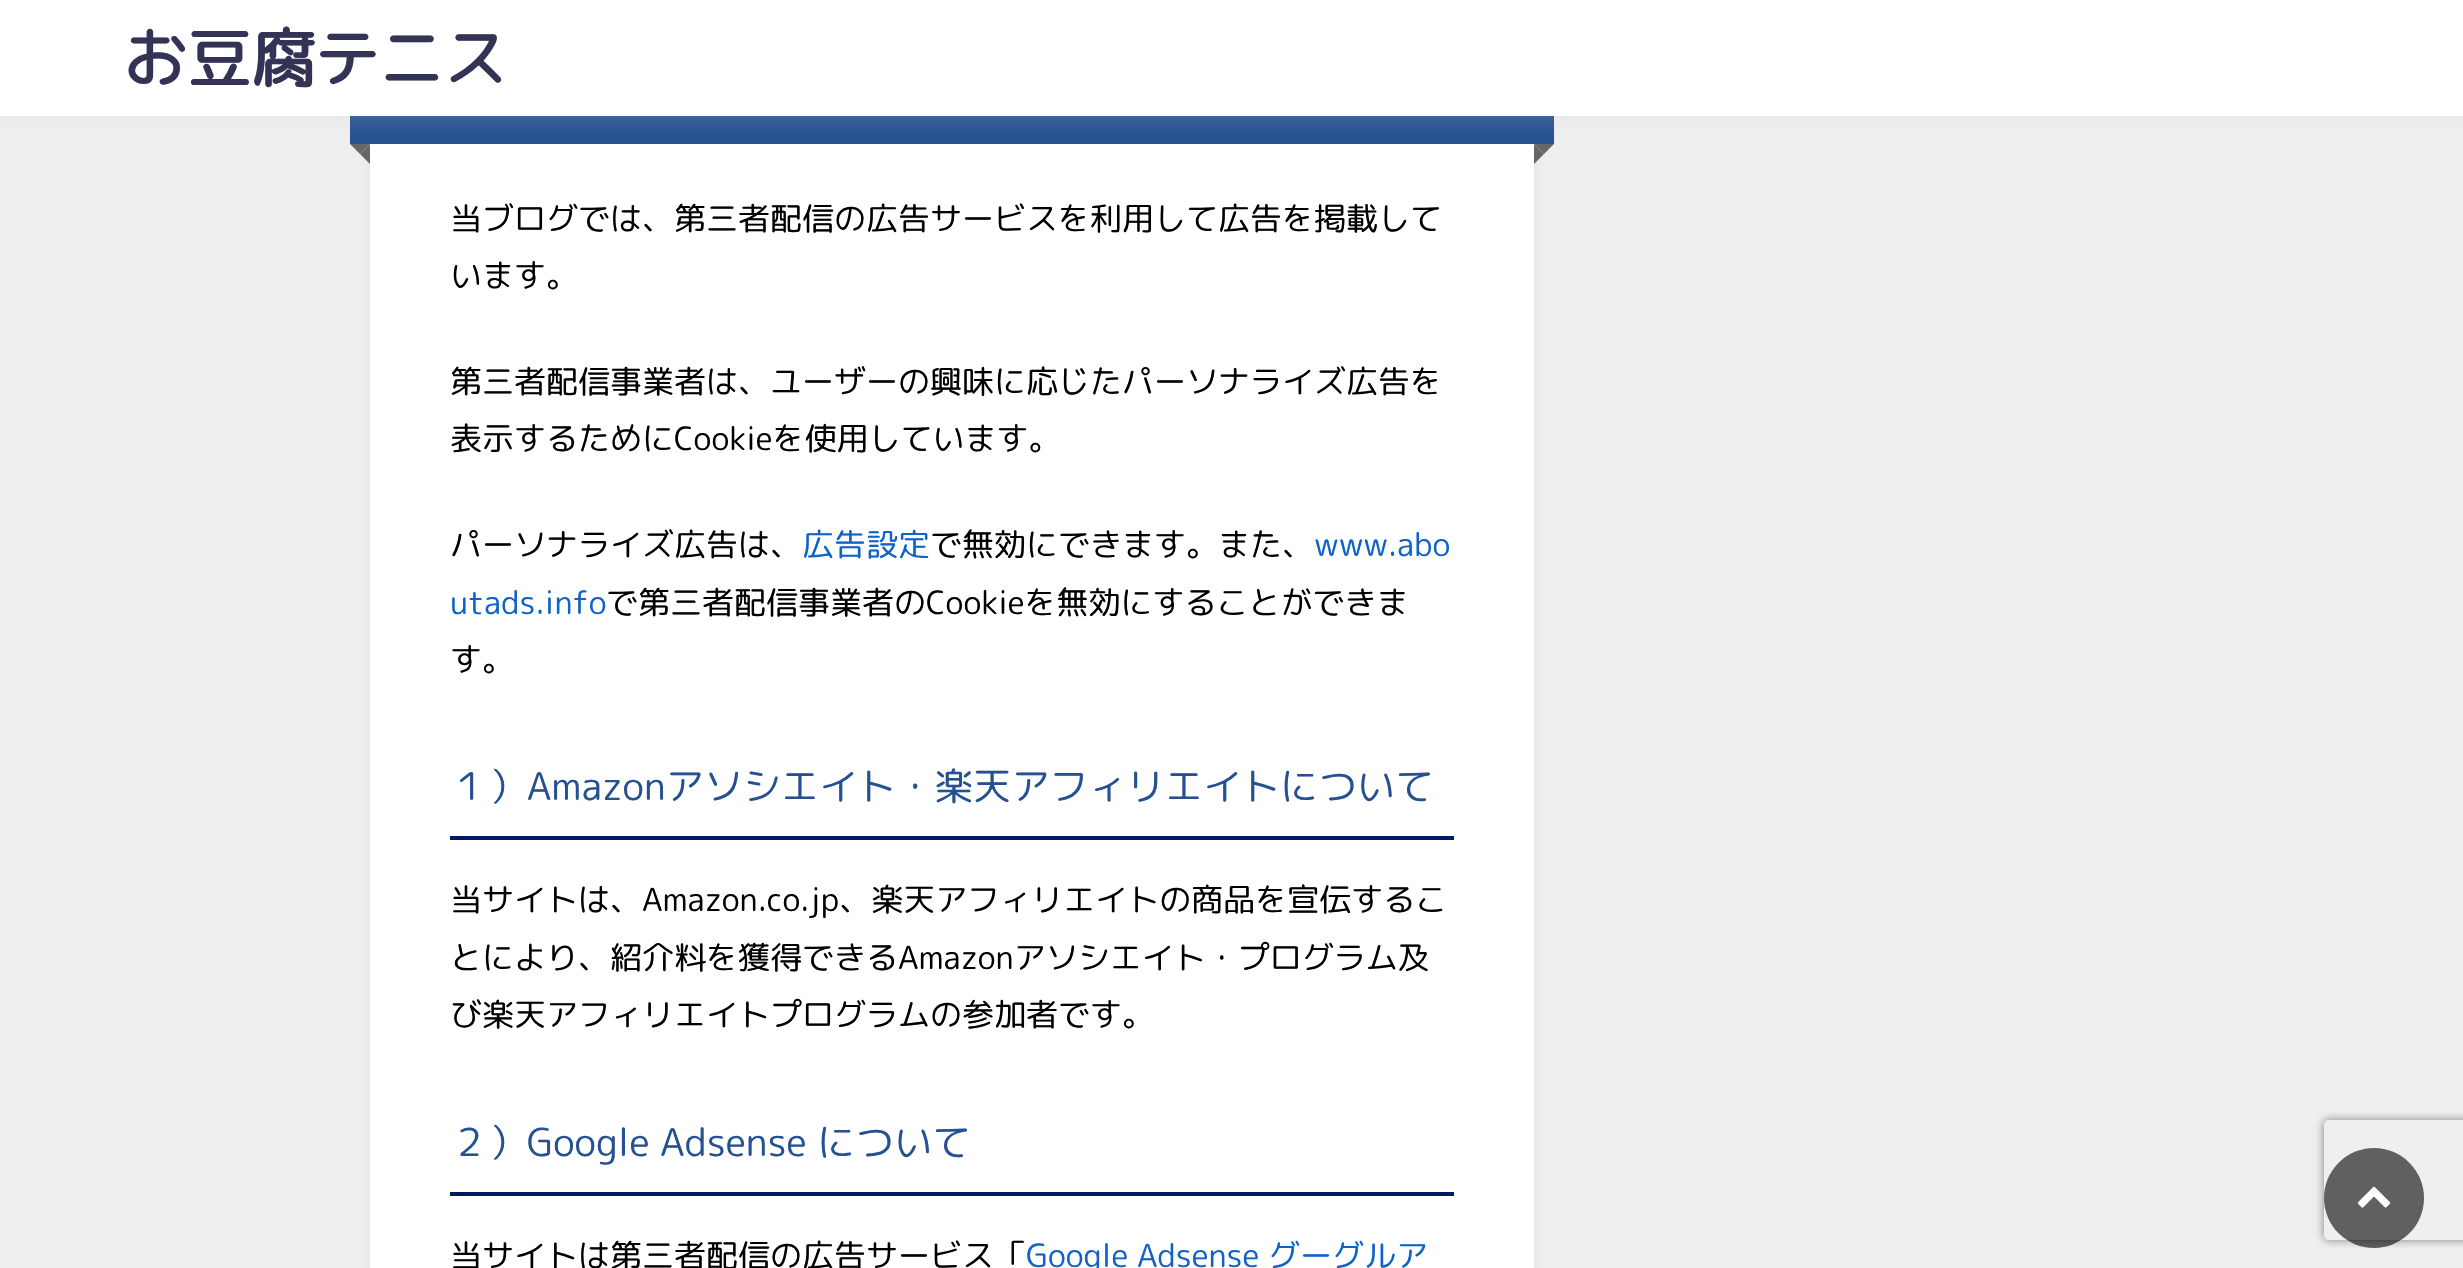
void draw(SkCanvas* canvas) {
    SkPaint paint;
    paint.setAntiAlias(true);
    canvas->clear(0xFFEFEFEF);
    paint.setColor(0x33969696);
    paint.setMaskFilter(SkMaskFilter::MakeBlur(kNormal_SkBlurStyle, 5));
    canvas->drawRect(SkRect::MakeXYWH(370, -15, 1164, 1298), paint);
    paint.setMaskFilter(nullptr);
    paint.setColor(0xFFFFFFFF);
    canvas->drawRect(SkRect::MakeXYWH(370, 144, 1164, 1124), paint);
    paint.setColor(0xFF255091);
    canvas->drawRect(SkRect::MakeXYWH(350, 116, 1204, 28), paint);
    paint.setColor(0xFF666666);
    canvas->drawPath(SkPathBuilder().moveTo(350, 144).lineTo(370, 144).lineTo(360, 154).close().detach(), paint);
    canvas->drawPath(SkPathBuilder().moveTo(370, 144).lineTo(370, 164).lineTo(360, 154).close().detach(), paint);
    canvas->drawPath(SkPathBuilder().moveTo(1534, 144).lineTo(1554, 144).lineTo(1544, 154).close().detach(), paint);
    canvas->drawPath(SkPathBuilder().moveTo(1534, 164).lineTo(1534, 144).lineTo(1544, 154).close().detach(), paint);
    paint.setColor(0x33C8C8C8);
    paint.setMaskFilter(SkMaskFilter::MakeBlur(kNormal_SkBlurStyle, 10));
    canvas->drawRect(SkRect::MakeXYWH(0, 6, 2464, 116), paint);
    paint.setMaskFilter(nullptr);
    paint.setColor(0xFFFFFFFF);
    canvas->drawRect(SkRect::MakeXYWH(0, 0, 2463, 116), paint);
    SkFont font1(fontMgr->matchFamilyStyle("Rounded Mplus 1c", SkFontStyle::Bold()), 64);
    font1.setSubpixel(true);
    paint.setColor(0xFF333355);
    canvas->drawString("お豆腐テニス", 123, 82, font1, paint);
    SkFont font2(fontMgr->matchFamilyStyle("Rounded Mplus 1c", SkFontStyle::Normal()), 32);
    font2.setSubpixel(true);
    paint.setColor(0xFF000000);
    canvas->drawString("当ブログでは、第三者配信の広告サービスを利用して広告を掲載して", 450, 230, font2, paint);
    canvas->drawString("います。", 450, 287, font2, paint);
    canvas->drawString("第三者配信事業者は、ユーザーの興味に応じたパーソナライズ広告を", 450, 393, font2, paint);
    canvas->drawString("表示するためにCookieを使用しています。", 450, 450, font2, paint);
    canvas->drawString("パーソナライズ広告は、", 450, 556, font2, paint);
    paint.setColor(0xFF0E62C9);
    canvas->drawString("広告設定", 802, 556, font2, paint);
    paint.setColor(0xFF000000);
    canvas->drawString("で無効にできます。また、", 930, 556, font2, paint);
    paint.setColor(0xFF0E62C9);
    canvas->drawString("www.abo", 1314, 556, font2, paint);
    canvas->drawString("utads.info", 450, 614, font2, paint);
    paint.setColor(0xFF000000);
    canvas->drawString("で第三者配信事業者のCookieを無効にすることができま", 606, 614, font2, paint);
    canvas->drawString("す。", 450, 671, font2, paint);
    paint.setColor(0xFF001960);
    canvas->drawRect(SkRect::MakeXYWH(450, 836, 1004, 4), paint);
    SkFont font3(fontMgr->matchFamilyStyle("Rounded Mplus 1c", SkFontStyle::Normal()), 38.4f);
    font3.setSubpixel(true);
    paint.setColor(0xFF255091);
    canvas->drawString("１）Amazonアソシエイト・楽天アフィリエイトについて", 450, 800, font3, paint);
    paint.setColor(0xFF000000);
    canvas->drawString("当サイトは、Amazon.co.jp、楽天アフィリエイトの商品を宣伝するこ", 450, 911, font2, paint);
    canvas->drawString("とにより、紹介料を獲得できるAmazonアソシエイト・プログラム及", 450, 969, font2, paint);
    canvas->drawString("び楽天アフィリエイトプログラムの参加者です。", 450, 1026, font2, paint);
    paint.setColor(0xFF001960);
    canvas->drawRect(SkRect::MakeXYWH(450, 1192, 1004, 4), paint);
    paint.setColor(0xFF255091);
    canvas->drawString("２）Google Adsense について", 450, 1156, font3, paint);
    paint.setColor(0xFF000000);
    canvas->drawString("当サイトは第三者配信の広告サービス「", 450, 1267, font2, paint);
    paint.setColor(0xFF0E62C9);
    canvas->drawString("Google Adsense グーグルア", 1026, 1267, font2, paint);
    canvas->save();
    canvas->clipPath(SkPathBuilder(SkPathFillType::kEvenOdd).moveTo(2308, 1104).lineTo(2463, 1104).lineTo(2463, 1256).lineTo(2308, 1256).close().moveTo(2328, 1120).lineTo(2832, 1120).cubicTo(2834, 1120, 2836, 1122, 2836, 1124).lineTo(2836, 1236).cubicTo(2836, 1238, 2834, 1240, 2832, 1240).lineTo(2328, 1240).cubicTo(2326, 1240, 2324, 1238, 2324, 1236).lineTo(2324, 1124).cubicTo(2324, 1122, 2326, 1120, 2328, 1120).close().detach(), true);
    paint.setColor(0xFF808080);
    paint.setMaskFilter(SkMaskFilter::MakeBlur(kNormal_SkBlurStyle, 5));
    canvas->drawRoundRect(SkRect::MakeXYWH(2324, 1120, 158, 120), 4, 4, paint);
    paint.setMaskFilter(nullptr);
    canvas->restore();
    paint.setColor(0x99000000);
    canvas->drawCircle(2374, 1198, 50, paint);
    canvas->drawImageRect(SkImages::DeferredFromEncodedData(SkData::MakeFromFileName("img1.png")), SkRect::MakeXYWH(2357, 1186, 34, 22), SkSamplingOptions());
}
